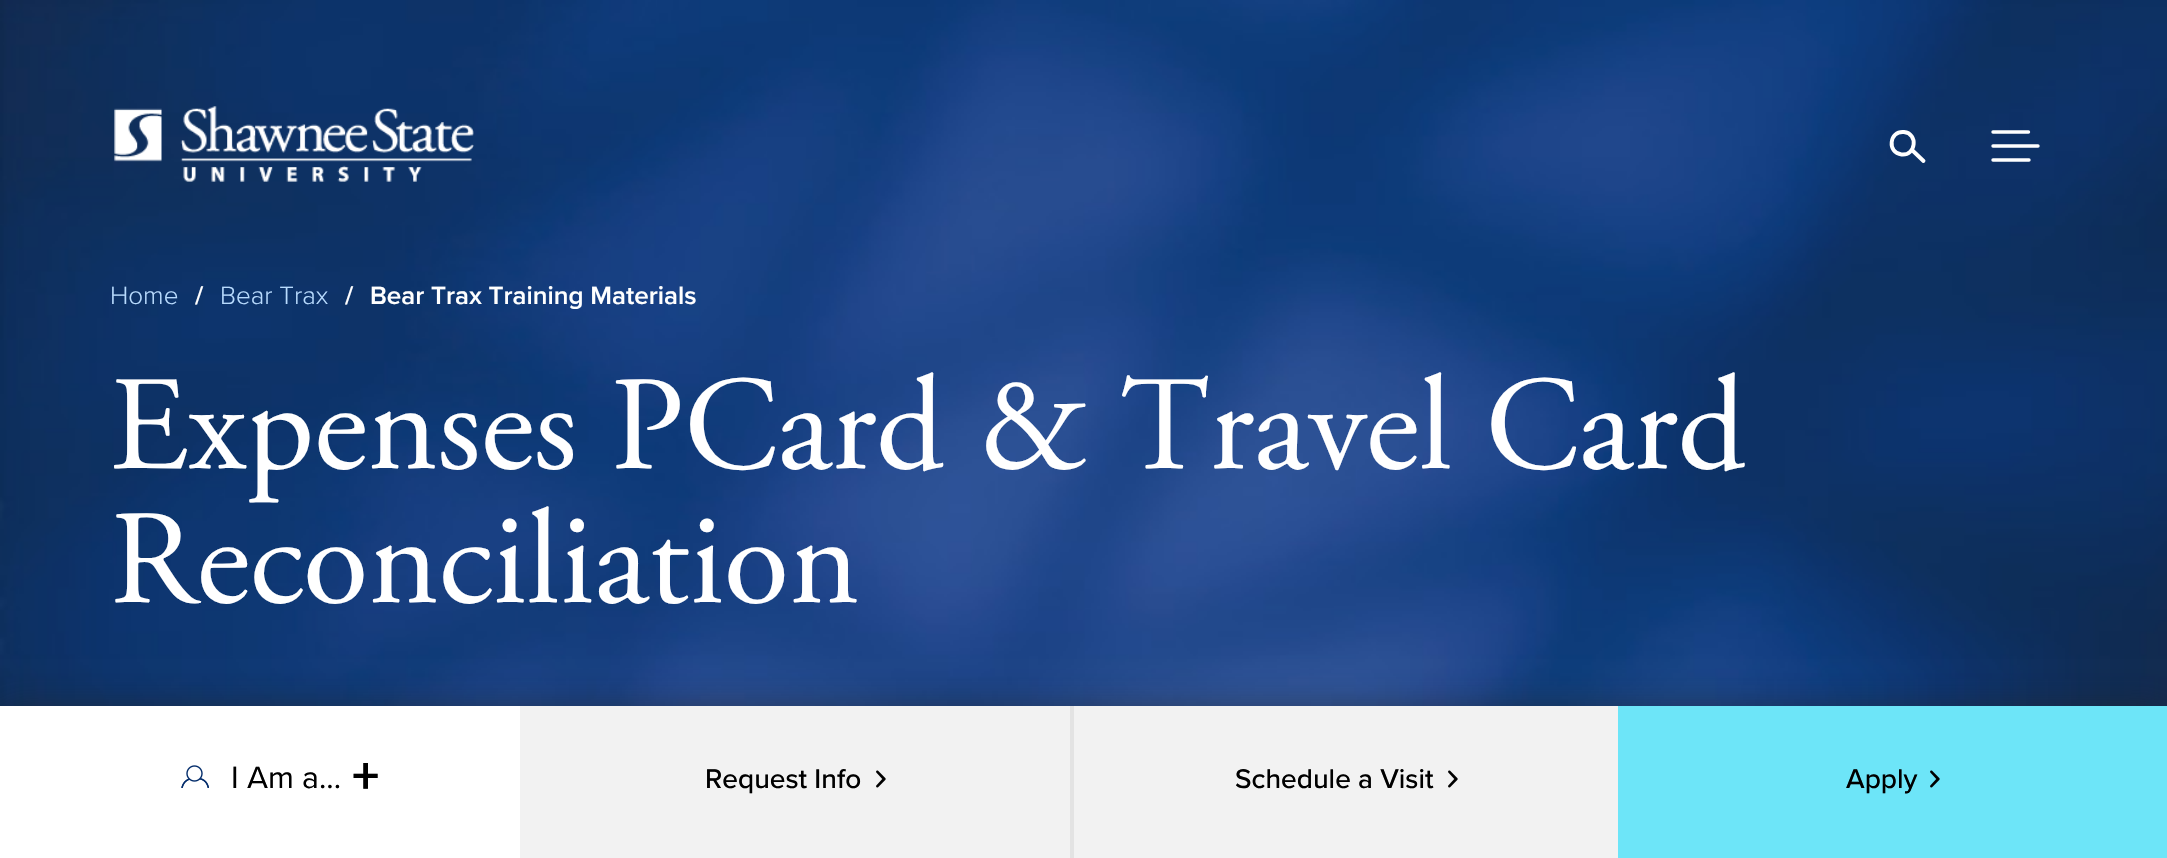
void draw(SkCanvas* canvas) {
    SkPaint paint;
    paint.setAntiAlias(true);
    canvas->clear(0xFFFFFFFF);
    canvas->drawImageRect(SkImages::DeferredFromEncodedData(SkData::MakeFromFileName("img2.png")), SkRect::MakeXYWH(0, 0, 2167, 706), SkSamplingOptions());
    canvas->drawImageRect(SkImages::DeferredFromEncodedData(SkData::MakeFromFileName("img1.png")), SkRect::MakeXYWH(114, 106, 360, 76), SkSamplingOptions());
    paint.setStyle(SkPaint::kStroke_Style);
    paint.setStrokeWidth(3.9f);
    paint.setStrokeCap(SkPaint::kRound_Cap);
    paint.setStrokeJoin(SkPaint::kRound_Join);
    paint.setColor(0xFFFFFFFF);
    canvas->drawPath(SkPathBuilder().moveTo(1912, 150).lineTo(1923.5f, 161).detach(), paint);
    paint.setStrokeCap(SkPaint::kButt_Cap);
    paint.setStrokeJoin(SkPaint::kMiter_Join);
    canvas->drawPath(SkPathBuilder().moveTo(1904, 132).cubicTo(1918.5f, 133.5f, 1916, 156, 1901.5f, 154.5f).cubicTo(1887, 153, 1889, 130.5f, 1904, 132).close().detach(), paint);
    paint.setStrokeWidth(3.4f);
    paint.setStrokeCap(SkPaint::kRound_Cap);
    paint.setStrokeJoin(SkPaint::kRound_Join);
    canvas->drawPath(SkPathBuilder().moveTo(1993, 132).lineTo(2028.5f, 132).moveTo(1993, 146).lineTo(2038, 146).moveTo(1993, 160).lineTo(2029, 160).detach(), paint);
    SkFont font1(fontMgr->matchFamilyStyle("Proxima Nova", SkFontStyle(300, SkFontStyle::kNormal_Width, SkFontStyle::kUpright_Slant)), 26);
    font1.setSubpixel(true);
    paint.setStyle(SkPaint::kFill_Style);
    paint.setColor(0xFFB8DBFE);
    canvas->drawString("Home", 110, 304, font1, paint);
    SkFont font2(fontMgr->matchFamilyStyle("Proxima Nova", SkFontStyle(600, SkFontStyle::kNormal_Width, SkFontStyle::kUpright_Slant)), 26);
    font2.setSubpixel(true);
    paint.setColor(0xFFFFFFFF);
    canvas->drawString("/", 195, 304, font2, paint);
    paint.setColor(0xFFB8DBFE);
    canvas->drawString("Bear Trax", 220, 304, font1, paint);
    paint.setColor(0xFFFFFFFF);
    canvas->drawString("/", 345, 304, font2, paint);
    canvas->drawString("Bear Trax Training Materials", 370, 304, font2, paint);
    SkFont font3(fontMgr->matchFamilyStyle("Adobe Garamond", SkFontStyle::Normal()), 134);
    font3.setSubpixel(true);
    canvas->drawString("Expenses PCard & Travel Card", 110, 468, font3, paint);
    canvas->drawString("Reconciliation", 110, 602, font3, paint);
    paint.setColor(0x9C262626);
    paint.setMaskFilter(SkMaskFilter::MakeBlur(kNormal_SkBlurStyle, 17));
    canvas->drawRect(SkRect::MakeXYWH(0, 710, 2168, 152), paint);
    paint.setMaskFilter(nullptr);
    paint.setColor(0xFFFFFFFF);
    canvas->drawRect(SkRect::MakeXYWH(0, 706, 520, 152), paint);
    canvas->drawImageRect(SkImages::DeferredFromEncodedData(SkData::MakeFromFileName("img3.png")), SkRect::MakeXYWH(181, 765, 28, 23), SkSamplingOptions());
    SkFont font4(fontMgr->matchFamilyStyle("Proxima Nova", SkFontStyle::Normal()), 32);
    font4.setSubpixel(true);
    paint.setColor(0xFF000000);
    canvas->drawString("I Am a...", 231, 788, font4, paint);
    SkFont font5(fontMgr->matchFamilyStyle("Proxima Nova", SkFontStyle::Bold()), 54);
    font5.setSubpixel(true);
    canvas->drawString("+", 352, 794, font5, paint);
    paint.setColor(0xFFF2F2F2);
    canvas->drawRect(SkRect::MakeXYWH(520, 706, 1098, 152), paint);
    SkFont font6(fontMgr->matchFamilyStyle("Proxima Nova", SkFontStyle(500, SkFontStyle::kNormal_Width, SkFontStyle::kUpright_Slant)), 28);
    font6.setSubpixel(true);
    paint.setColor(0xFF000000);
    canvas->drawString("Request Info", 705, 788, font6, paint);
    canvas->drawImageRect(SkImages::DeferredFromEncodedData(SkData::MakeFromFileName("img4.png")), SkRect::MakeXYWH(876, 770, 10, 18), SkSamplingOptions());
    paint.setColor(0xFFE3E3E3);
    canvas->drawRect(SkRect::MakeXYWH(1070, 706, 4, 152), paint);
    paint.setColor(0xFF000000);
    canvas->drawString("Schedule a Visit", 1235, 788, font6, paint);
    canvas->drawImageRect(SkImages::DeferredFromEncodedData(SkData::MakeFromFileName("img4.png")), SkRect::MakeXYWH(1448, 770, 10, 18), SkSamplingOptions());
    paint.setColor(0xFF6DE5F8);
    canvas->drawRect(SkRect::MakeXYWH(1618, 706, 549, 152), paint);
    paint.setColor(0xFF000000);
    canvas->drawString("Apply", 1846, 788, font6, paint);
    canvas->drawImageRect(SkImages::DeferredFromEncodedData(SkData::MakeFromFileName("img5.png")), SkRect::MakeXYWH(1930, 770, 10, 18), SkSamplingOptions());
}
